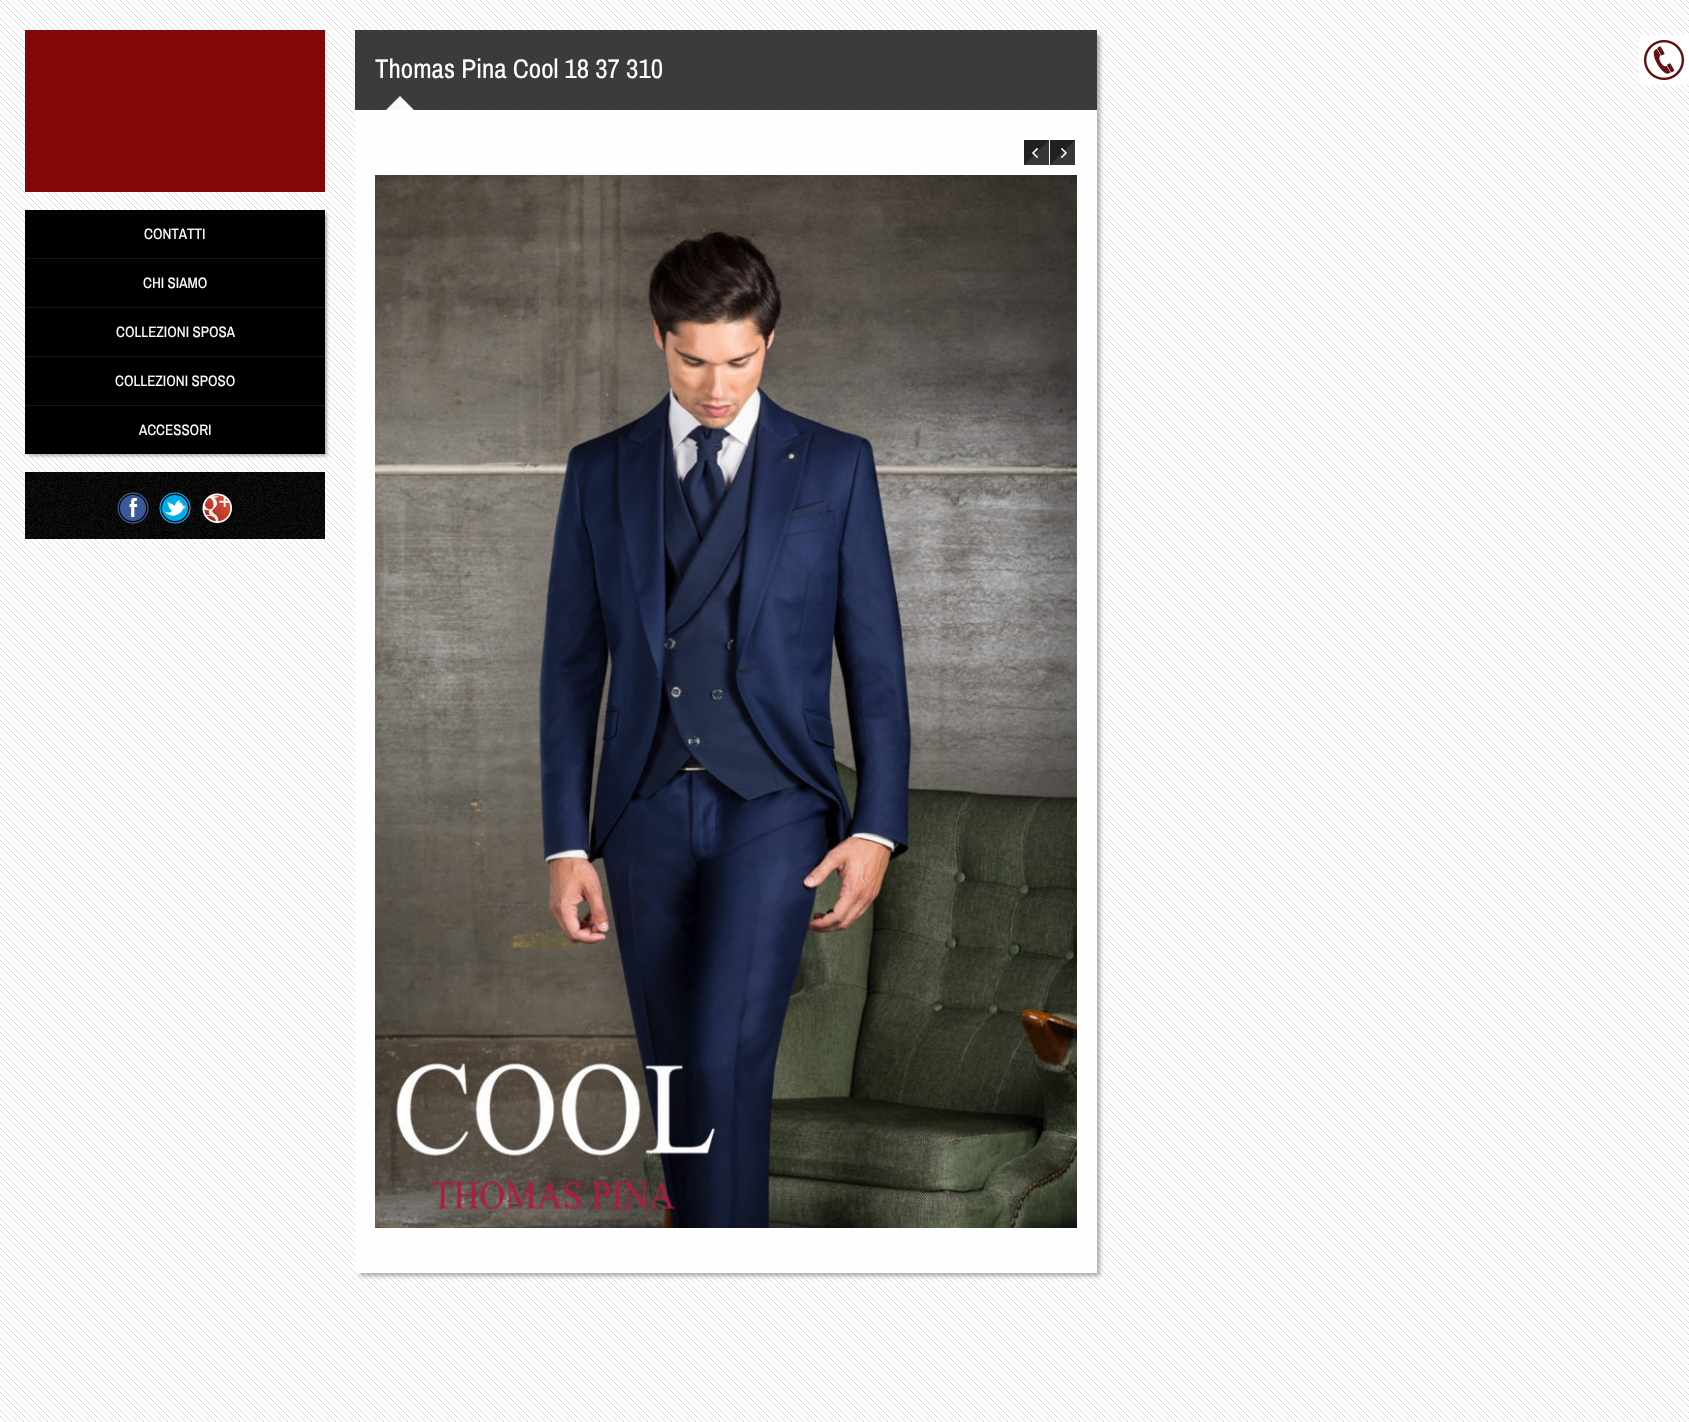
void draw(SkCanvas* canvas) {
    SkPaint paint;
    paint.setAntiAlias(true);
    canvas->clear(0xFFFFFFFF);
    canvas->drawImageRect(SkImages::DeferredFromEncodedData(SkData::MakeFromFileName("img1.png")), SkRect::MakeXYWH(0, 0, 1689, 1422), SkSamplingOptions());
    canvas->save();
    canvas->clipPath(SkPathBuilder(SkPathFillType::kEvenOdd).moveTo(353, 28).lineTo(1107, 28).lineTo(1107, 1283).lineTo(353, 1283).close().moveTo(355, 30).lineTo(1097, 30).lineTo(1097, 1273).lineTo(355, 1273).close().detach(), true);
    paint.setColor(0x4D000000);
    paint.setMaskFilter(SkMaskFilter::MakeBlur(kNormal_SkBlurStyle, 2));
    canvas->drawRect(SkRect::MakeXYWH(360, 35, 740, 1241), paint);
    paint.setMaskFilter(nullptr);
    canvas->restore();
    paint.setColor(0xD6171717);
    canvas->drawRect(SkRect::MakeXYWH(355, 30, 742, 80), paint);
    SkFont font1(fontMgr->matchFamilyStyle("Archivo Narrow", SkFontStyle::Normal()), 27);
    font1.setSubpixel(true);
    paint.setColor(0xFFFFFFFF);
    canvas->drawString("Thomas Pina Cool 18 37 310", 375, 78, font1, paint);
    paint.setColor(0xFFF9F9F9);
    canvas->drawPath(SkPathBuilder().moveTo(415, 111).lineTo(385, 111).lineTo(400, 96).close().detach(), paint);
    paint.setColor(0xE6FFFFFF);
    canvas->drawRect(SkRect::MakeXYWH(355, 110, 742, 1163), paint);
    paint.setColor(0xFF202020);
    canvas->drawRect(SkRect::MakeXYWH(1024, 140, 25, 25), paint);
    canvas->drawImageRect(SkImages::DeferredFromEncodedData(SkData::MakeFromFileName("img2.png")), SkRect::MakeXYWH(1024, 140, 25, 25), SkSamplingOptions());
    canvas->drawRect(SkRect::MakeXYWH(1050, 140, 25, 25), paint);
    canvas->drawImageRect(SkImages::DeferredFromEncodedData(SkData::MakeFromFileName("img3.png")), SkRect::MakeXYWH(1050, 140, 25, 25), SkSamplingOptions());
    canvas->drawImageRect(SkImages::DeferredFromEncodedData(SkData::MakeFromFileName("img4.png")), SkRect::MakeXYWH(375, 175, 702, 1053), SkSamplingOptions());
    paint.setColor(0xFFFFFFFF);
    canvas->drawPath(SkPathBuilder().moveTo(1645, 35).lineTo(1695, 35).lineTo(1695, 85).lineTo(1645, 85).cubicTo(1641.5f, 85, 1639, 82.5f, 1639, 79).lineTo(1639, 41).cubicTo(1639, 37.5f, 1641.5f, 35, 1645, 35).close().detach(), paint);
    canvas->drawImageRect(SkImages::DeferredFromEncodedData(SkData::MakeFromFileName("img5.png")), SkRect::MakeXYWH(1644, 40, 40, 40), SkSamplingOptions());
    paint.setColor(0xFF840707);
    canvas->drawRect(SkRect::MakeXYWH(25, 30, 300, 162), paint);
    paint.setColor(0x4D000000);
    paint.setMaskFilter(SkMaskFilter::MakeBlur(kNormal_SkBlurStyle, 1.5f));
    canvas->drawRect(SkRect::MakeXYWH(29, 214, 298, 242), paint);
    paint.setMaskFilter(nullptr);
    paint.setColor(0xFF000000);
    canvas->drawRect(SkRect::MakeXYWH(25, 210, 300, 48), paint);
    paint.setColor(0xFF191919);
    canvas->drawRect(SkRect::MakeXYWH(25, 258, 300, 1), paint);
    SkFont font2(fontMgr->matchFamilyStyle("Archivo Narrow", SkFontStyle::Normal()), 15);
    font2.setSubpixel(true);
    paint.setColor(0xFFFFFFFF);
    canvas->drawString("CONTATTI", 144, 239, font2, paint);
    paint.setColor(0xFF000000);
    canvas->drawRect(SkRect::MakeXYWH(25, 259, 300, 48), paint);
    paint.setColor(0xFF191919);
    canvas->drawRect(SkRect::MakeXYWH(25, 307, 300, 1), paint);
    paint.setColor(0xFFFFFFFF);
    canvas->drawString("CHI SIAMO", 143, 288, font2, paint);
    paint.setColor(0xFF000000);
    canvas->drawRect(SkRect::MakeXYWH(25, 308, 300, 48), paint);
    paint.setColor(0xFF191919);
    canvas->drawRect(SkRect::MakeXYWH(25, 356, 300, 1), paint);
    paint.setColor(0xFFFFFFFF);
    canvas->drawString("COLLEZIONI SPOSA", 116, 337, font2, paint);
    paint.setColor(0xFF000000);
    canvas->drawRect(SkRect::MakeXYWH(25, 357, 300, 48), paint);
    paint.setColor(0xFF191919);
    canvas->drawRect(SkRect::MakeXYWH(25, 405, 300, 1), paint);
    paint.setColor(0xFFFFFFFF);
    canvas->drawString("COLLEZIONI SPOSO", 115, 386, font2, paint);
    paint.setColor(0xFF000000);
    canvas->drawRect(SkRect::MakeXYWH(25, 406, 300, 48), paint);
    paint.setColor(0xFFFFFFFF);
    canvas->drawString("ACCESSORI", 139, 435, font2, paint);
    paint.setColor(0xFF000000);
    canvas->drawRect(SkRect::MakeXYWH(25, 472, 300, 67), paint);
    canvas->drawImageRect(SkImages::DeferredFromEncodedData(SkData::MakeFromFileName("img6.png")), SkRect::MakeXYWH(25, 472, 300, 67), SkSamplingOptions());
    canvas->drawImageRect(SkImages::DeferredFromEncodedData(SkData::MakeFromFileName("img7.png")), SkRect::MakeXYWH(117, 492, 32, 32), SkSamplingOptions());
    canvas->drawImageRect(SkImages::DeferredFromEncodedData(SkData::MakeFromFileName("img8.png")), SkRect::MakeXYWH(159, 492, 32, 32), SkSamplingOptions());
    canvas->drawImageRect(SkImages::DeferredFromEncodedData(SkData::MakeFromFileName("img9.png")), SkRect::MakeXYWH(202, 493, 30, 31), SkSamplingOptions());
}
